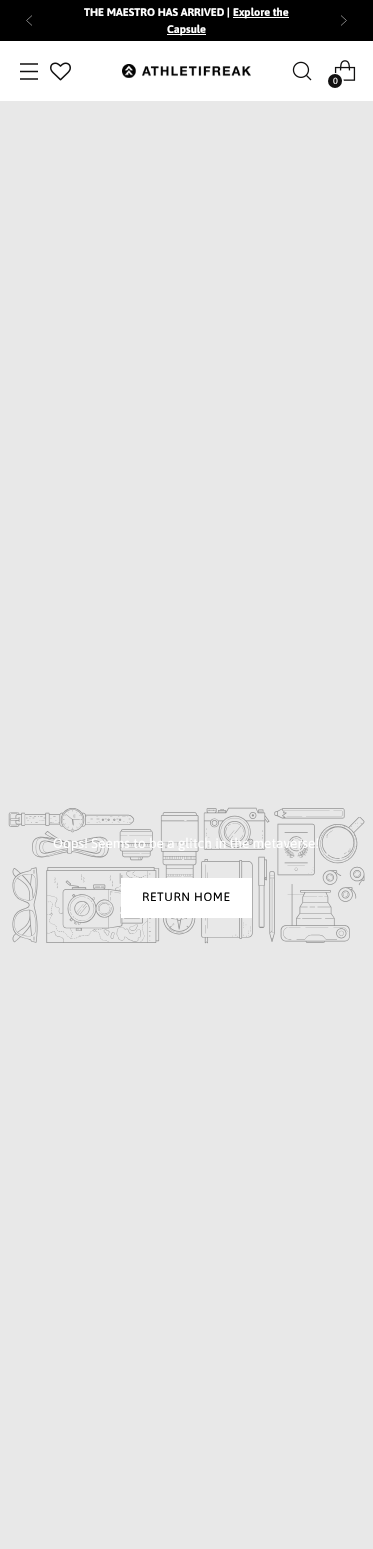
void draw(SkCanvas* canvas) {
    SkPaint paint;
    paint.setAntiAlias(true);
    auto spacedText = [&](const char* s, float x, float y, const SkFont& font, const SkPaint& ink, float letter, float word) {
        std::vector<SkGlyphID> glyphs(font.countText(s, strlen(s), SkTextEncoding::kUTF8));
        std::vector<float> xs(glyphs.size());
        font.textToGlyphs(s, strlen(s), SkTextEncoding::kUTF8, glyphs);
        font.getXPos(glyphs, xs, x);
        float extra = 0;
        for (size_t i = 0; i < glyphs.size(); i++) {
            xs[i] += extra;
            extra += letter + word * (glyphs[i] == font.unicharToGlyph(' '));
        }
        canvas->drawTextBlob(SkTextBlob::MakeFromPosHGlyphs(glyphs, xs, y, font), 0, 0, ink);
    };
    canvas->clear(0xFFFFFFFF);
    paint.setColor(0xFF000000);
    canvas->drawRect(SkRect::MakeXYWH(0, 0, 373, 41), paint);
    SkFont font1(fontMgr->matchFamilyStyle("Asap", SkFontStyle::Bold()), 11);
    font1.setSubpixel(true);
    paint.setColor(0xFFFFFFFF);
    canvas->drawString("THE MAESTRO HAS ARRIVED |", 84, 16, font1, paint);
    canvas->drawRect(SkRect::MakeXYWH(233, 17, 56, 1), paint);
    canvas->drawString("Explore the", 233, 16, font1, paint);
    canvas->drawRect(SkRect::MakeXYWH(167, 34, 39, 1), paint);
    canvas->drawString("Capsule", 167, 33, font1, paint);
    paint.setStyle(SkPaint::kStroke_Style);
    paint.setStrokeWidth(1);
    paint.setColor(0xFF808080);
    canvas->drawPath(SkPathBuilder().moveTo(32, 15.5f).lineTo(26.5f, 20.5f).lineTo(32, 25.5f).detach(), paint);
    canvas->drawPath(SkPathBuilder().moveTo(341, 25.5f).lineTo(346.5f, 20.5f).lineTo(341, 15.5f).detach(), paint);
    paint.setStrokeWidth(1.3f);
    paint.setColor(0xFF111010);
    canvas->drawPath(SkPathBuilder().moveTo(20, 71.5f).lineTo(38, 71.5f).moveTo(20, 64).lineTo(38, 64).moveTo(20, 79).lineTo(38, 79).detach(), paint);
    canvas->drawImageRect(SkImages::DeferredFromEncodedData(SkData::MakeFromFileName("img1.png")), SkRect::MakeXYWH(50, 62, 21, 19), SkSamplingOptions());
    canvas->drawImageRect(SkImages::DeferredFromEncodedData(SkData::MakeFromFileName("img2.png")), SkRect::MakeXYWH(122, 64, 129, 14), SkSamplingOptions());
    canvas->drawImageRect(SkImages::DeferredFromEncodedData(SkData::MakeFromFileName("img3.png")), SkRect::MakeXYWH(292, 61, 20, 20), SkSamplingOptions());
    canvas->drawImageRect(SkImages::DeferredFromEncodedData(SkData::MakeFromFileName("img4.png")), SkRect::MakeXYWH(334, 60, 22, 21), SkSamplingOptions());
    paint.setStrokeWidth(2);
    paint.setColor(0xFFFFFFFF);
    canvas->drawCircle(335.5f, 81.5f, 7.5f, paint);
    paint.setStyle(SkPaint::kFill_Style);
    paint.setColor(0xFF111010);
    canvas->drawCircle(335, 81, 7, paint);
    SkFont font2(fontMgr->matchFamilyStyle("Asap", SkFontStyle::Normal()), 9);
    font2.setSubpixel(true);
    paint.setColor(0xFFFFFFFF);
    canvas->drawString("0", 333, 84, font2, paint);
    paint.setColor(0xFFE8E8E8);
    canvas->drawRect(SkRect::MakeXYWH(0, 101, 373, 1448), paint);
    canvas->drawImageRect(SkImages::DeferredFromEncodedData(SkData::MakeFromFileName("img5.png")), SkRect::MakeXYWH(8, 807, 357, 137), SkSamplingOptions());
    SkFont font3(fontMgr->matchFamilyStyle("Asap", SkFontStyle::Normal()), 13.6f);
    font3.setSubpixel(true);
    paint.setColor(0xFFFFFFFF);
    canvas->drawString("Oops! Seems to be a glitch in the metaverse!", 53, 848, font3, paint);
    canvas->save();
    canvas->clipRect(SkRect::MakeXYWH(121, 878, 131, 40));
    canvas->drawPath(SkPathBuilder().moveTo(90, 878).lineTo(260, 878).lineTo(283, 918).lineTo(113, 918).close().detach(), paint);
    canvas->restore();
    SkFont font4(fontMgr->matchFamilyStyle("Asap", SkFontStyle::Normal()), 12);
    font4.setSubpixel(true);
    paint.setColor(0xFF000000);
    spacedText("RETURN HOME", 142, 901, font4, paint, 0.6f, 0);
}
